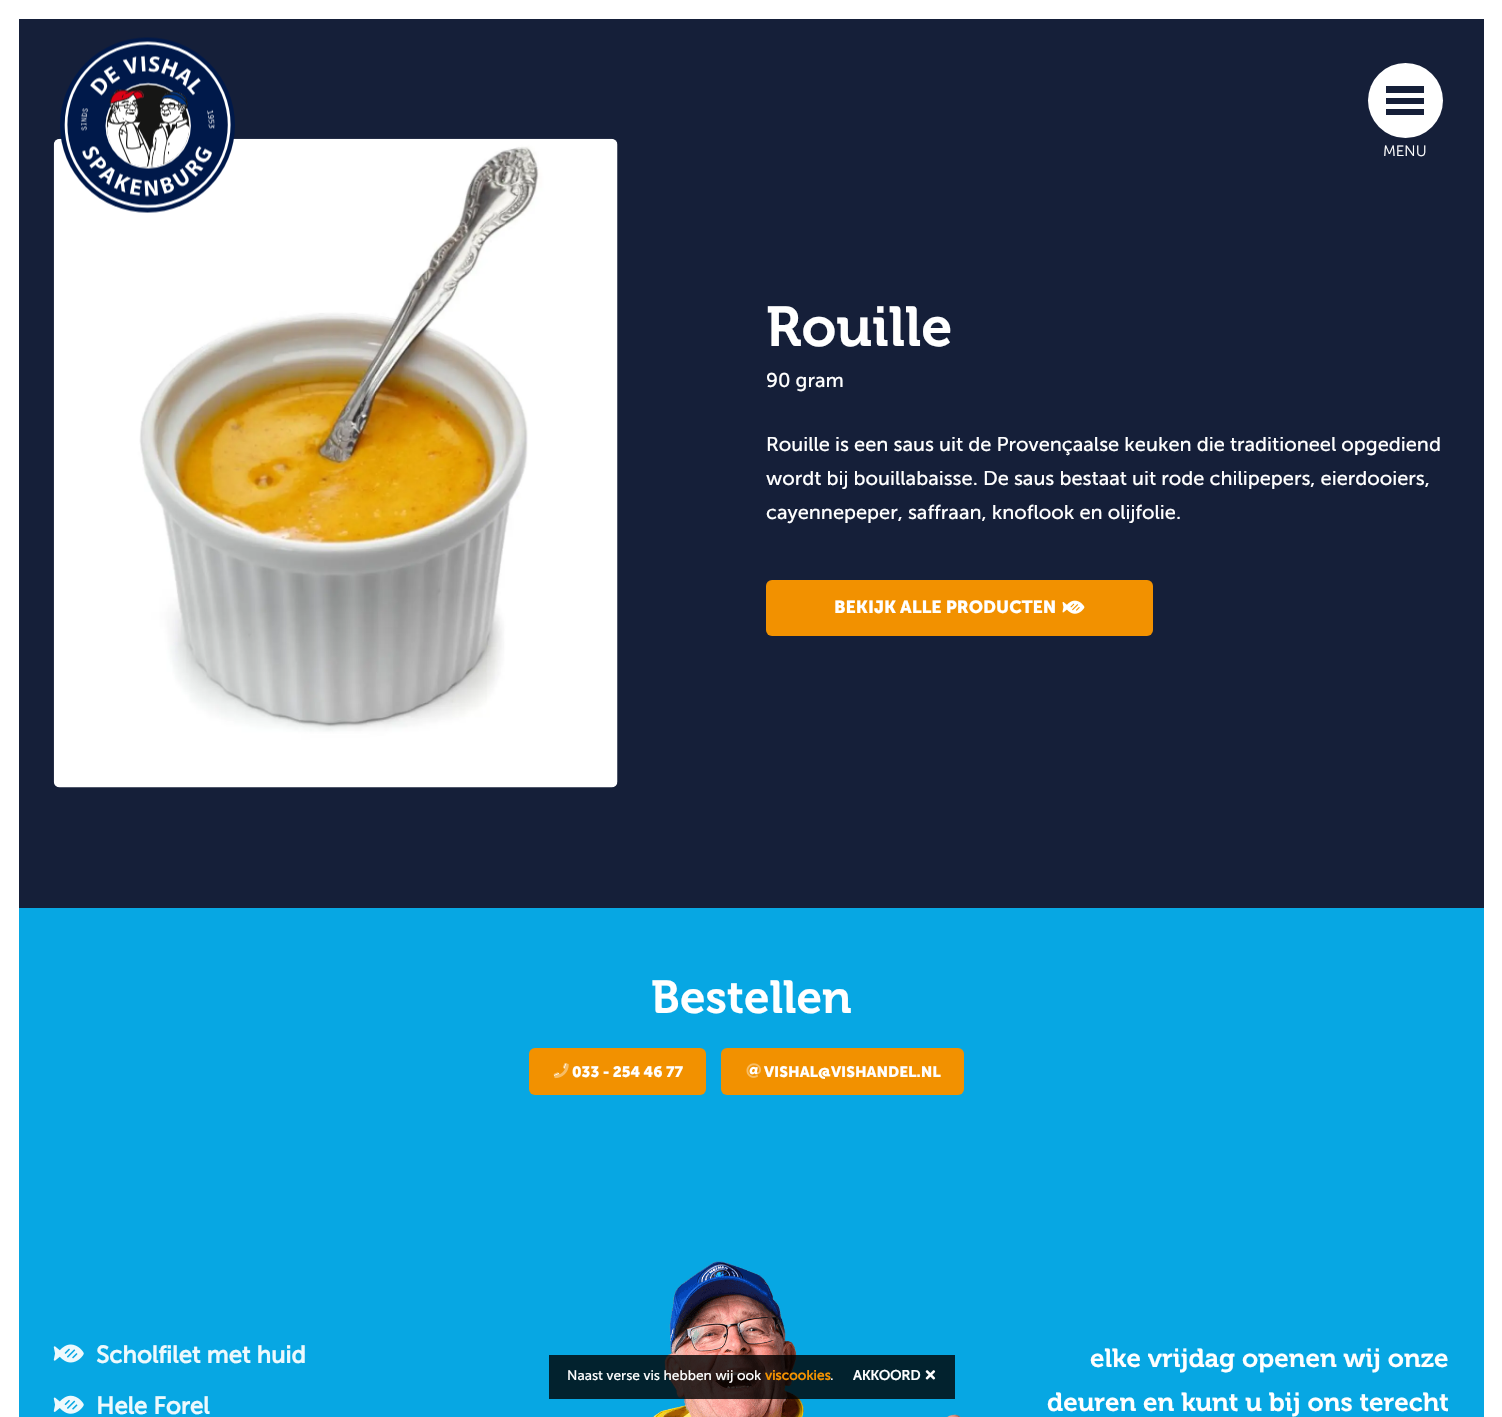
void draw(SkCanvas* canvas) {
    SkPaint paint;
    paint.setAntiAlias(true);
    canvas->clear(0xFF07A7E3);
    paint.setColor(0xFFFFFFFF);
    canvas->drawRect(SkRect::MakeXYWH(19, 0, 1465, 19), paint);
    canvas->drawRect(SkRect::MakeXYWH(1484, 0, 18, 1417), paint);
    canvas->drawRect(SkRect::MakeXYWH(0, 0, 19, 1417), paint);
    paint.setColor(0xFF151F39);
    canvas->drawRect(SkRect::MakeXYWH(19, 19, 1465, 889), paint);
    canvas->drawImageRect(SkImages::DeferredFromEncodedData(SkData::MakeFromFileName("img2.png")), SkRect::MakeXYWH(53, 138, 565, 650), SkSamplingOptions());
    canvas->drawImageRect(SkImages::DeferredFromEncodedData(SkData::MakeFromFileName("img1.png")), SkRect::MakeXYWH(60, 37, 175, 176), SkSamplingOptions());
    paint.setColor(0xFFFFFFFF);
    canvas->drawCircle(1405.5f, 100.5f, 37.5f, paint);
    paint.setColor(0xFF151F39);
    canvas->drawRect(SkRect::MakeXYWH(1386, 86, 38, 7), paint);
    canvas->drawRect(SkRect::MakeXYWH(1386, 98, 38, 6), paint);
    canvas->drawRect(SkRect::MakeXYWH(1386, 109, 38, 6), paint);
    SkFont font1(fontMgr->matchFamilyStyle("Museo Sans", SkFontStyle(300, SkFontStyle::kNormal_Width, SkFontStyle::kUpright_Slant)), 15);
    font1.setSubpixel(true);
    paint.setColor(0xFFFFFFFF);
    canvas->drawString("MENU", 1383, 156, font1, paint);
    SkFont font2(fontMgr->matchFamilyStyle("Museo", SkFontStyle(600, SkFontStyle::kNormal_Width, SkFontStyle::kUpright_Slant)), 56);
    font2.setSubpixel(true);
    canvas->drawString("Rouille", 766, 346, font2, paint);
    SkFont font3(fontMgr->matchFamilyStyle("Museo Sans", SkFontStyle::Normal()), 20);
    font3.setSubpixel(true);
    canvas->drawString("90 gram", 766, 387, font3, paint);
    canvas->drawString("Rouille is een saus uit de Provençaalse keuken die traditioneel opgediend", 766, 451, font3, paint);
    canvas->drawString("wordt bij bouillabaisse. De saus bestaat uit rode chilipepers, eierdooiers,", 766, 485, font3, paint);
    canvas->drawString("cayennepeper, saffraan, knoflook en olijfolie.", 766, 519, font3, paint);
    paint.setColor(0xFFF29100);
    canvas->drawRoundRect(SkRect::MakeXYWH(766, 580, 387, 56), 6, 6, paint);
    SkFont font4(fontMgr->matchFamilyStyle("Museo Sans", SkFontStyle::Bold()), 17.5f);
    font4.setSubpixel(true);
    paint.setColor(0xFFFFFFFF);
    canvas->drawString("BEKIJK ALLE PRODUCTEN", 834, 613, font4, paint);
    canvas->drawImageRect(SkImages::DeferredFromEncodedData(SkData::MakeFromFileName("img3.png")), SkRect::MakeXYWH(1062, 600, 23, 14), SkSamplingOptions());
    SkFont font5(fontMgr->matchFamilyStyle("Museo", SkFontStyle(600, SkFontStyle::kNormal_Width, SkFontStyle::kUpright_Slant)), 46);
    font5.setSubpixel(true);
    canvas->drawString("Bestellen", 651, 1013, font5, paint);
    paint.setColor(0xFFF29100);
    canvas->drawRoundRect(SkRect::MakeXYWH(529, 1048, 177, 47), 6, 6, paint);
    canvas->drawImageRect(SkImages::DeferredFromEncodedData(SkData::MakeFromFileName("img4.png")), SkRect::MakeXYWH(553, 1063, 14, 13), SkSamplingOptions());
    canvas->drawImageRect(SkImages::DeferredFromEncodedData(SkData::MakeFromFileName("img5.png")), SkRect::MakeXYWH(553, 1063, 16, 16), SkSamplingOptions());
    SkFont font6(fontMgr->matchFamilyStyle("Museo Sans", SkFontStyle::Bold()), 15);
    font6.setSubpixel(true);
    paint.setColor(0xFFFFFFFF);
    canvas->drawString("033 - 254 46 77", 572, 1077, font6, paint);
    paint.setColor(0xFFF29100);
    canvas->drawRoundRect(SkRect::MakeXYWH(721, 1048, 243, 47), 6, 6, paint);
    canvas->drawImageRect(SkImages::DeferredFromEncodedData(SkData::MakeFromFileName("img7.png")), SkRect::MakeXYWH(749, 1066, 9, 9), SkSamplingOptions());
    canvas->drawImageRect(SkImages::DeferredFromEncodedData(SkData::MakeFromFileName("img6.png")), SkRect::MakeXYWH(746, 1063, 15, 15), SkSamplingOptions());
    paint.setColor(0xFFFFFFFF);
    canvas->drawString("VISHAL@VISHANDEL.NL", 764, 1077, font6, paint);
    canvas->drawImageRect(SkImages::DeferredFromEncodedData(SkData::MakeFromFileName("img8.png")), SkRect::MakeXYWH(653, 1261, 308, 156), SkSamplingOptions());
    canvas->drawImageRect(SkImages::DeferredFromEncodedData(SkData::MakeFromFileName("img9.png")), SkRect::MakeXYWH(53, 1344, 31, 19), SkSamplingOptions());
    SkFont font7(fontMgr->matchFamilyStyle("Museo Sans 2", SkFontStyle::Bold()), 24);
    font7.setSubpixel(true);
    canvas->drawString("Scholfilet met huid", 96, 1363, font7, paint);
    canvas->drawImageRect(SkImages::DeferredFromEncodedData(SkData::MakeFromFileName("img10.png")), SkRect::MakeXYWH(53, 1395, 31, 19), SkSamplingOptions());
    canvas->drawString("Hele Forel", 96, 1414, font7, paint);
    {
        const SkColor colors[] = {0xB307A7E3, 0x1207A7E3};
        const float stops[] = {0, 0.8f};
        const SkPoint ends[] = {{276, 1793}, {276, 1335}};
        paint.setShader(SkGradientShader::MakeLinear(ends, colors, stops, 2, SkTileMode::kClamp));
        paint.setAlpha(255);
    }
    canvas->drawRect(SkRect::MakeXYWH(54, 1344, 250, 71), paint);
    SkFont font8(fontMgr->matchFamilyStyle("Museo", SkFontStyle(600, SkFontStyle::kNormal_Width, SkFontStyle::kUpright_Slant)), 26);
    font8.setSubpixel(true);
    paint.setShader(nullptr);
    paint.setColor(0xFFFFFFFF);
    canvas->drawString("elke vrijdag openen wij onze", 1090, 1367, font8, paint);
    canvas->drawString("deuren en kunt u bij ons terecht", 1047, 1411, font8, paint);
    paint.setColor(0xCC000000);
    canvas->drawRect(SkRect::MakeXYWH(549, 1355, 406, 44), paint);
    SkFont font9(fontMgr->matchFamilyStyle("Museo Sans", SkFontStyle::Normal()), 13.75f);
    font9.setSubpixel(true);
    paint.setColor(0xFFFFFFFF);
    canvas->drawString("Naast verse vis hebben wij ook", 567, 1380, font9, paint);
    SkFont font10(fontMgr->matchFamilyStyle("Museo Sans 2", SkFontStyle::Bold()), 13.75f);
    font10.setSubpixel(true);
    paint.setColor(0xFFF29100);
    canvas->drawString("viscookies", 765, 1380, font10, paint);
    paint.setColor(0xFFFFFFFF);
    canvas->drawString(".", 830, 1380, font9, paint);
    canvas->drawString("AKKOORD", 853, 1380, font10, paint);
    canvas->drawImageRect(SkImages::DeferredFromEncodedData(SkData::MakeFromFileName("img11.png")), SkRect::MakeXYWH(925, 1370, 11, 10), SkSamplingOptions());
}
